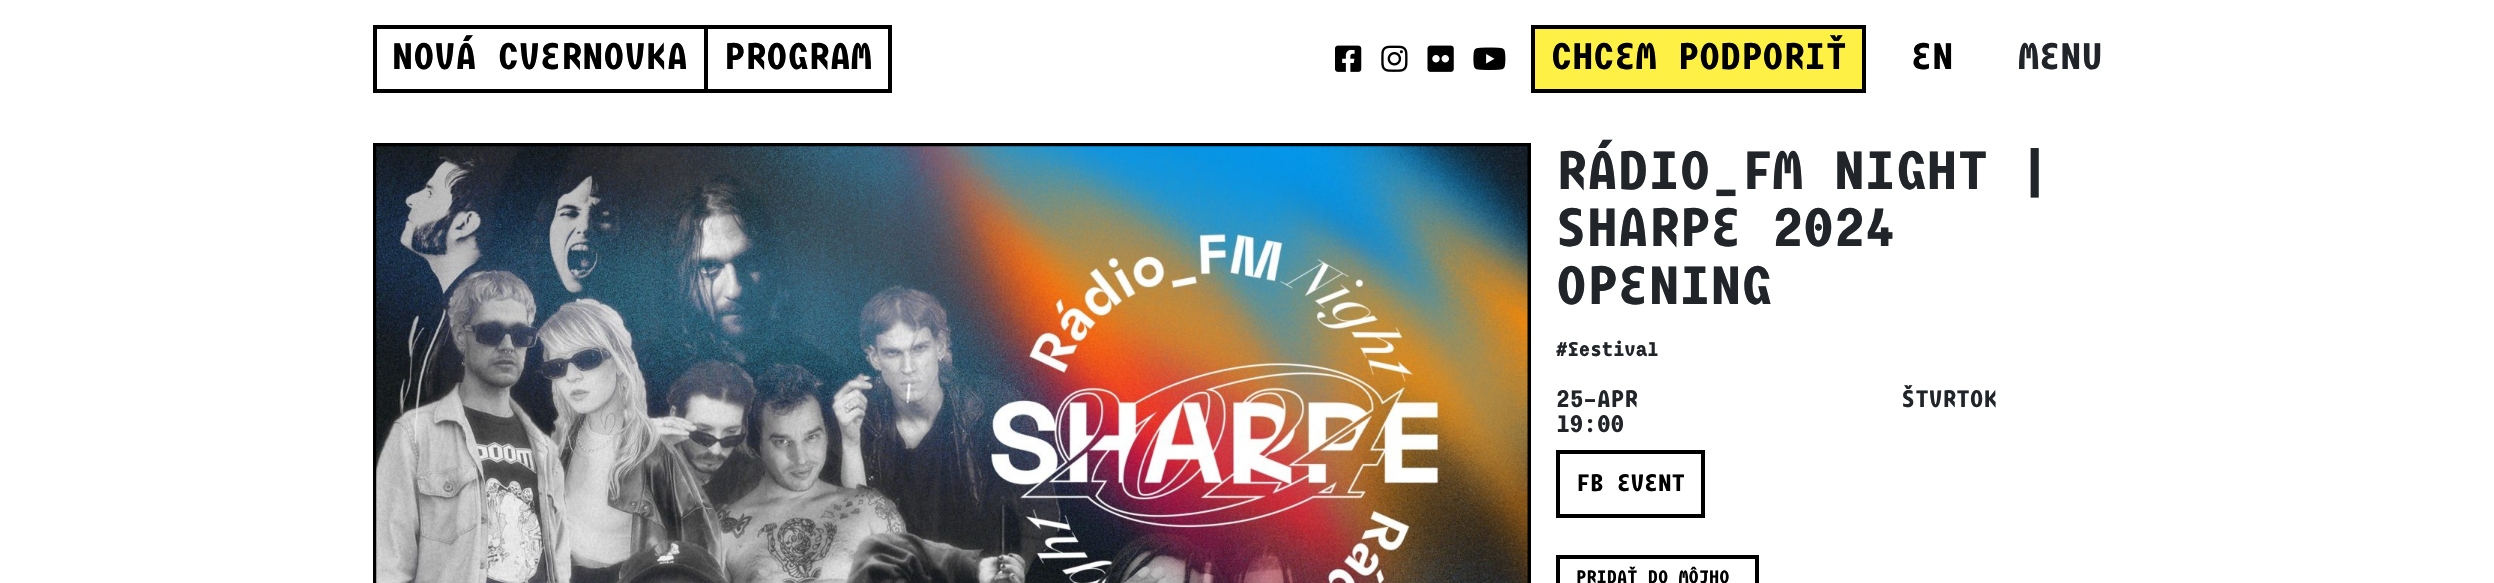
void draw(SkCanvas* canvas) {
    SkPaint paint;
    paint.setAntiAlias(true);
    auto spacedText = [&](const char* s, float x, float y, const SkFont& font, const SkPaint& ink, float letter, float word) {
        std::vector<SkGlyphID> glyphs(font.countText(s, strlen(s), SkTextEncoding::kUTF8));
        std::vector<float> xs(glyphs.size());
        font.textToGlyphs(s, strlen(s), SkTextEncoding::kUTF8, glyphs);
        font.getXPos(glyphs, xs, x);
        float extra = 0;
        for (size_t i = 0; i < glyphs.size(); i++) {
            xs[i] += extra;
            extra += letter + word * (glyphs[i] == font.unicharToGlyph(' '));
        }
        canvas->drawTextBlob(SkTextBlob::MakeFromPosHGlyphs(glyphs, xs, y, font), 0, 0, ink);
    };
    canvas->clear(0xFFFFFFFF);
    paint.setStyle(SkPaint::kStroke_Style);
    paint.setStrokeWidth(4);
    paint.setColor(0xFF000000);
    canvas->drawRect(SkRect::MakeXYWH(375, 27, 331, 64), paint);
    SkFont font1(fontMgr->matchFamilyStyle("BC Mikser", SkFontStyle::Bold()), 32.5f);
    font1.setSubpixel(true);
    paint.setStyle(SkPaint::kFill_Style);
    canvas->drawString("NOVÁ CVERNOVKA", 392, 69, font1, paint);
    canvas->drawRect(SkRect::MakeXYWH(708, 25, 183, 4), paint);
    canvas->drawRect(SkRect::MakeXYWH(888, 25, 4, 68), paint);
    canvas->drawRect(SkRect::MakeXYWH(708, 89, 183, 4), paint);
    canvas->drawString("PROGRAM", 724, 69, font1, paint);
    canvas->drawImageRect(SkImages::DeferredFromEncodedData(SkData::MakeFromFileName("img1.png")), SkRect::MakeXYWH(1335, 45, 27, 27), SkSamplingOptions());
    canvas->drawImageRect(SkImages::DeferredFromEncodedData(SkData::MakeFromFileName("img2.png")), SkRect::MakeXYWH(1381, 45, 27, 27), SkSamplingOptions());
    canvas->drawImageRect(SkImages::DeferredFromEncodedData(SkData::MakeFromFileName("img3.png")), SkRect::MakeXYWH(1427, 45, 27, 27), SkSamplingOptions());
    canvas->drawImageRect(SkImages::DeferredFromEncodedData(SkData::MakeFromFileName("img4.png")), SkRect::MakeXYWH(1473, 47, 33, 23), SkSamplingOptions());
    paint.setColor(0xFFFFF046);
    canvas->drawRect(SkRect::MakeXYWH(1533, 27, 331, 64), paint);
    paint.setStyle(SkPaint::kStroke_Style);
    paint.setColor(0xFF000000);
    canvas->drawRect(SkRect::MakeXYWH(1533, 27, 331, 64), paint);
    paint.setStyle(SkPaint::kFill_Style);
    canvas->drawString("CHCEM PODPORIŤ", 1551, 69, font1, paint);
    canvas->drawString("EN", 1911, 69, font1, paint);
    paint.setColor(0xFF212529);
    canvas->drawString("MENU", 2018, 69, font1, paint);
    paint.setStyle(SkPaint::kStroke_Style);
    paint.setColor(0xFF000000);
    canvas->drawRect(SkRect::MakeXYWH(375, 145, 1154, 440), paint);
    canvas->drawImageRect(SkImages::DeferredFromEncodedData(SkData::MakeFromFileName("img5.png")), SkRect::MakeXYWH(376, 146, 1152, 437), SkSamplingOptions());
    SkFont font2(fontMgr->matchFamilyStyle("BC Mikser", SkFontStyle::Bold()), 47.5f);
    font2.setSubpixel(true);
    paint.setStyle(SkPaint::kFill_Style);
    paint.setColor(0xFF212529);
    canvas->drawString("RÁDIO_FM NIGHT |", 1556, 189, font2, paint);
    canvas->drawString("SHARPE 2024", 1556, 246, font2, paint);
    canvas->drawString("OPENING", 1556, 304, font2, paint);
    SkFont font3(fontMgr->matchFamilyStyle("BC Mikser", SkFontStyle::Bold()), 17.5f);
    font3.setSubpixel(true);
    canvas->drawString("#festival", 1556, 356, font3, paint);
    SkFont font4(fontMgr->matchFamilyStyle("BC Mikser", SkFontStyle::Bold()), 21);
    font4.setSubpixel(true);
    spacedText("25–APR ŠTVRTOK", 1556, 407, font4, paint, 0, 250);
    canvas->drawString("19:00", 1556, 432, font4, paint);
    paint.setStyle(SkPaint::kStroke_Style);
    paint.setColor(0xFF000000);
    canvas->drawRect(SkRect::MakeXYWH(1558, 452, 145, 64), paint);
    paint.setStyle(SkPaint::kFill_Style);
    canvas->drawString("FB EVENT", 1576, 491, font4, paint);
    paint.setStyle(SkPaint::kStroke_Style);
    canvas->drawRect(SkRect::MakeXYWH(1558, 557, 199, 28), paint);
    SkFont font5(fontMgr->matchFamilyStyle("BC Mikser", SkFontStyle::Bold()), 15.75f);
    font5.setSubpixel(true);
    paint.setStyle(SkPaint::kFill_Style);
    canvas->drawString("PRIDAŤ DO MÔJHO", 1576, 583, font5, paint);
}
